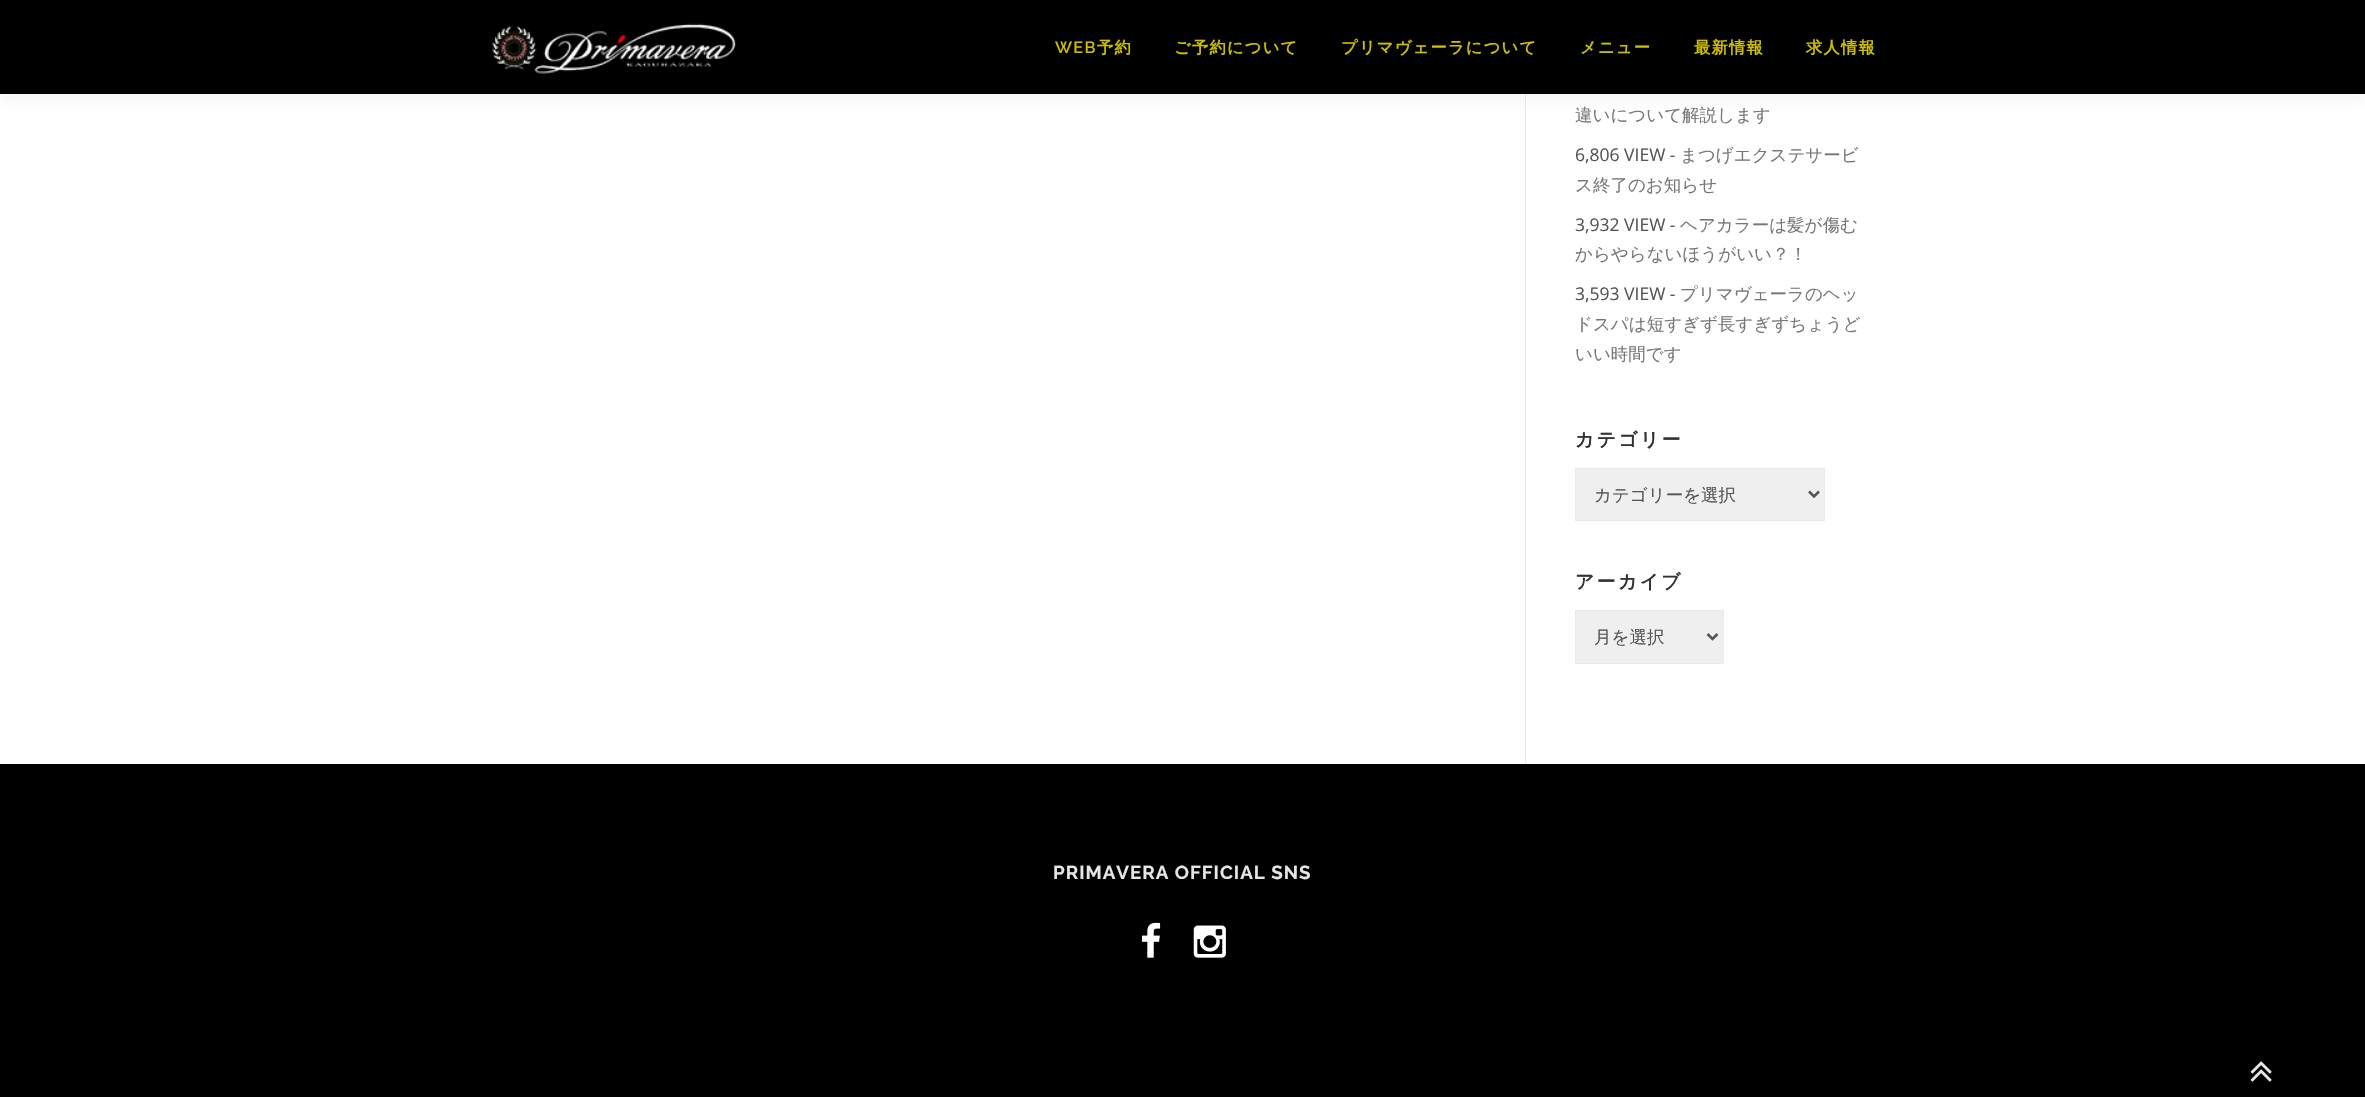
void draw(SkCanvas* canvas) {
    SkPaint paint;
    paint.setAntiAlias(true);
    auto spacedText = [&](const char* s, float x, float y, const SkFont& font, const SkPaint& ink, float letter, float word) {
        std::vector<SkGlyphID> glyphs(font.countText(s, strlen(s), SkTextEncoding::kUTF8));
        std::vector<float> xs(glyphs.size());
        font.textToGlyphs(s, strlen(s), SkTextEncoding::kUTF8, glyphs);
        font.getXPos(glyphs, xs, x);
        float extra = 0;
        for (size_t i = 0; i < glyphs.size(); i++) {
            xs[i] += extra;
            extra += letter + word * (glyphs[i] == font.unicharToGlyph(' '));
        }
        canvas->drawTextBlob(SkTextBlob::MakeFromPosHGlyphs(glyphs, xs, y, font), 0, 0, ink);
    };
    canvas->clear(0xFFFFFFFF);
    paint.setColor(0xFFE9E9E9);
    canvas->drawRect(SkRect::MakeXYWH(1525, 94, 1, 670), paint);
    paint.setColor(0x0F323232);
    paint.setMaskFilter(SkMaskFilter::MakeBlur(kNormal_SkBlurStyle, 6));
    canvas->drawRect(SkRect::MakeXYWH(0, 6, 2365, 94), paint);
    paint.setMaskFilter(nullptr);
    paint.setColor(0xFF000000);
    canvas->drawRect(SkRect::MakeXYWH(0, 0, 2365, 94), paint);
    canvas->drawImageRect(SkImages::DeferredFromEncodedData(SkData::MakeFromFileName("img1.png")), SkRect::MakeXYWH(492, 23, 244, 51), SkSamplingOptions());
    SkFont font1(fontMgr->matchFamilyStyle("Raleway", SkFontStyle(600, SkFontStyle::kNormal_Width, SkFontStyle::kUpright_Slant)), 16.25f);
    font1.setSubpixel(true);
    paint.setColor(0xFFCCBE00);
    spacedText("WEB", 1055, 53, font1, paint, 1.25f, 0);
    SkFont font2(fontMgr->matchFamilyStyle("WenQuanYi Zen Hei", SkFontStyle::Bold()), 16.25f);
    font2.setSubpixel(true);
    spacedText("予約", 1097, 53, font2, paint, 1.25f, 0);
    spacedText("ご予約について", 1174, 53, font2, paint, 1.25f, 0);
    spacedText("プリマヴェーラについて", 1341, 53, font2, paint, 1.25f, 0);
    spacedText("メニュー", 1580, 53, font2, paint, 1.25f, 0);
    spacedText("最新情報", 1694, 53, font2, paint, 1.25f, 0);
    spacedText("求人情報", 1806, 53, font2, paint, 1.25f, 0);
    SkFont font3(fontMgr->matchFamilyStyle("WenQuanYi Zen Hei", SkFontStyle(500, SkFontStyle::kNormal_Width, SkFontStyle::kUpright_Slant)), 17.5f);
    font3.setSubpixel(true);
    paint.setColor(0xFF777777);
    canvas->drawString("違いについて解説します", 1575, 121, font3, paint);
    SkFont font4(fontMgr->matchFamilyStyle("Open Sans", SkFontStyle::Normal()), 17.5f);
    font4.setSubpixel(true);
    paint.setColor(0xFF555555);
    canvas->drawString("6,806 VIEW -", 1575, 161, font4, paint);
    paint.setColor(0xFF777777);
    canvas->drawString("まつげエクステサービ", 1680, 161, font3, paint);
    canvas->drawString("ス終了のお知らせ", 1575, 191, font3, paint);
    paint.setColor(0xFF555555);
    canvas->drawString("3,932 VIEW -", 1575, 231, font4, paint);
    paint.setColor(0xFF777777);
    canvas->drawString("ヘアカラーは髪が傷む", 1680, 231, font3, paint);
    canvas->drawString("からやらないほうがいい？！", 1575, 260, font3, paint);
    paint.setColor(0xFF555555);
    canvas->drawString("3,593 VIEW -", 1575, 300, font4, paint);
    paint.setColor(0xFF777777);
    canvas->drawString("プリマヴェーラのヘッ", 1680, 300, font3, paint);
    canvas->drawString("ドスパは短すぎず長すぎずちょうど", 1575, 330, font3, paint);
    canvas->drawString("いい時間です", 1575, 360, font3, paint);
    SkFont font5(fontMgr->matchFamilyStyle("WenQuanYi Zen Hei", SkFontStyle::Bold()), 18.75f);
    font5.setSubpixel(true);
    paint.setColor(0xFF333333);
    spacedText("カテゴリー", 1575, 446, font5, paint, 2.5f, 0);
    paint.setColor(0xFFEFEFEF);
    canvas->drawRect(SkRect::MakeXYWH(1575.5f, 468.5f, 249, 52), paint);
    paint.setStyle(SkPaint::kStroke_Style);
    paint.setStrokeWidth(1);
    paint.setColor(0xFFE9E9E9);
    canvas->drawRect(SkRect::MakeXYWH(1575.5f, 468.5f, 249, 52), paint);
    paint.setStrokeWidth(2.5f);
    paint.setColor(0xFF555555);
    canvas->drawPath(SkPathBuilder().moveTo(1809, 491.5f).lineTo(1814, 496.5f).lineTo(1819, 491.5f).detach(), paint);
    paint.setStyle(SkPaint::kFill_Style);
    canvas->drawString("カテゴリーを選択", 1594, 501, font3, paint);
    paint.setColor(0xFF333333);
    spacedText("アーカイブ", 1575, 588, font5, paint, 2.5f, 0);
    paint.setColor(0xFFEFEFEF);
    canvas->drawRect(SkRect::MakeXYWH(1575.5f, 610.5f, 148, 53), paint);
    paint.setStyle(SkPaint::kStroke_Style);
    paint.setStrokeWidth(1);
    paint.setColor(0xFFE9E9E9);
    canvas->drawRect(SkRect::MakeXYWH(1575.5f, 610.5f, 148, 53), paint);
    paint.setStrokeWidth(2.5f);
    paint.setColor(0xFF555555);
    canvas->drawPath(SkPathBuilder().moveTo(1707.5f, 634).lineTo(1712.5f, 639).lineTo(1717.5f, 634).detach(), paint);
    paint.setStyle(SkPaint::kFill_Style);
    canvas->drawString("月を選択", 1594, 643, font3, paint);
    paint.setColor(0xFF000000);
    canvas->drawRect(SkRect::MakeXYWH(0, 764, 2365, 333), paint);
    SkFont font6(fontMgr->matchFamilyStyle("Raleway", SkFontStyle::Bold()), 18.75f);
    font6.setSubpixel(true);
    paint.setColor(0xFFE6E6E6);
    spacedText("PRIMAVERA OFFICIAL SNS", 1053, 879, font6, paint, 1, 0);
    canvas->drawImageRect(SkImages::DeferredFromEncodedData(SkData::MakeFromFileName("img2.png")), SkRect::MakeXYWH(1142, 922, 19, 36), SkSamplingOptions());
    canvas->drawImageRect(SkImages::DeferredFromEncodedData(SkData::MakeFromFileName("img3.png")), SkRect::MakeXYWH(1193, 925, 33, 33), SkSamplingOptions());
    canvas->drawImageRect(SkImages::DeferredFromEncodedData(SkData::MakeFromFileName("img4.png")), SkRect::MakeXYWH(2250, 1061, 22, 21), SkSamplingOptions());
}
